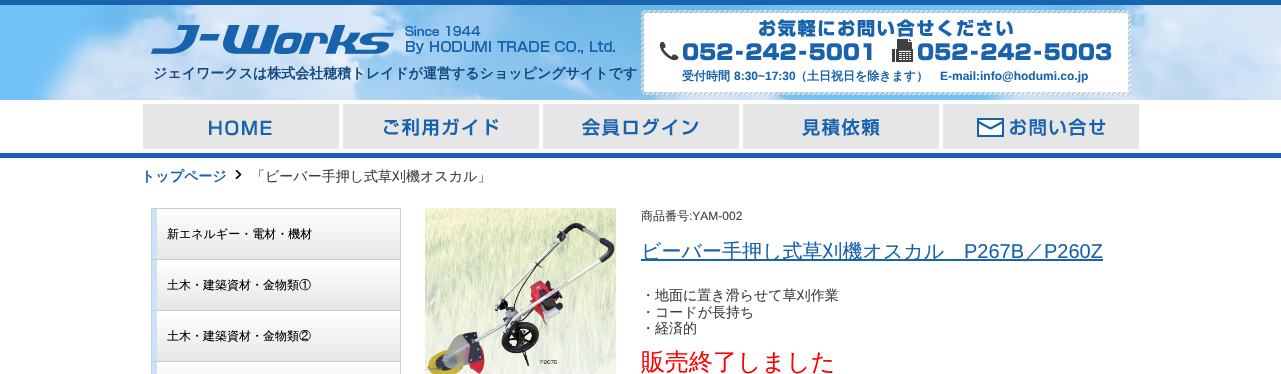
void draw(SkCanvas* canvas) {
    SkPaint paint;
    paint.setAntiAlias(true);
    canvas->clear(0xFFFFFFFF);
    paint.setColor(0xFF72C2F7);
    canvas->drawRect(SkRect::MakeXYWH(0, 5, 32, 95), paint);
    canvas->drawImageRect(SkImages::DeferredFromEncodedData(SkData::MakeFromFileName("img1.png")), SkRect::MakeXYWH(32, 5, 1249, 95), SkSamplingOptions());
    paint.setColor(0xFF1863AD);
    canvas->drawRect(SkRect::MakeXYWH(0, 0, 1281, 5), paint);
    canvas->drawImageRect(SkImages::DeferredFromEncodedData(SkData::MakeFromFileName("img2.png")), SkRect::MakeXYWH(151, 25, 243, 29), SkSamplingOptions());
    canvas->drawImageRect(SkImages::DeferredFromEncodedData(SkData::MakeFromFileName("img3.png")), SkRect::MakeXYWH(405, 26, 210, 28), SkSamplingOptions());
    SkFont font1(fontMgr->matchFamilyStyle("WenQuanYi Zen Hei", SkFontStyle::Bold()), 14);
    font1.setSubpixel(true);
    paint.setColor(0xFF124980);
    canvas->drawString("ジェイワークスは株式会社穂積トレイドが運営するショッピングサイトです", 153, 78, font1, paint);
    canvas->drawImageRect(SkImages::DeferredFromEncodedData(SkData::MakeFromFileName("img4.png")), SkRect::MakeXYWH(641, 10, 490, 85), SkSamplingOptions());
    canvas->drawImageRect(SkImages::DeferredFromEncodedData(SkData::MakeFromFileName("img5.png")), SkRect::MakeXYWH(759, 19, 254, 18), SkSamplingOptions());
    canvas->drawImageRect(SkImages::DeferredFromEncodedData(SkData::MakeFromFileName("img6.png")), SkRect::MakeXYWH(659, 41, 213, 20), SkSamplingOptions());
    canvas->drawImageRect(SkImages::DeferredFromEncodedData(SkData::MakeFromFileName("img7.png")), SkRect::MakeXYWH(892, 39, 220, 23), SkSamplingOptions());
    SkFont font2(fontMgr->matchFamilyStyle("WenQuanYi Zen Hei", SkFontStyle::Bold()), 12);
    font2.setSubpixel(true);
    paint.setColor(0xFF1863AD);
    canvas->drawString("受付時間", 682, 80, font2, paint);
    SkFont font3(fontMgr->matchFamilyStyle("Liberation Sans", SkFontStyle::Bold()), 12);
    font3.setSubpixel(true);
    canvas->drawString("8:30~17:30", 734, 80, font3, paint);
    canvas->drawString("（土日祝日を除きます）", 795, 80, font2, paint);
    canvas->drawString("E-mail:info@hodumi.co.jp", 940, 80, font3, paint);
    canvas->drawRect(SkRect::MakeXYWH(0, 153, 1281, 5), paint);
    paint.setColor(0xFFE6E6E6);
    canvas->drawRect(SkRect::MakeXYWH(143, 104, 196, 45), paint);
    canvas->drawImageRect(SkImages::DeferredFromEncodedData(SkData::MakeFromFileName("img8.png")), SkRect::MakeXYWH(209, 120, 63, 16), SkSamplingOptions());
    canvas->drawRect(SkRect::MakeXYWH(343, 104, 196, 45), paint);
    canvas->drawImageRect(SkImages::DeferredFromEncodedData(SkData::MakeFromFileName("img9.png")), SkRect::MakeXYWH(384, 118, 114, 18), SkSamplingOptions());
    canvas->drawRect(SkRect::MakeXYWH(543, 104, 196, 45), paint);
    canvas->drawImageRect(SkImages::DeferredFromEncodedData(SkData::MakeFromFileName("img10.png")), SkRect::MakeXYWH(582, 118, 117, 18), SkSamplingOptions());
    canvas->drawRect(SkRect::MakeXYWH(743, 104, 196, 45), paint);
    canvas->drawImageRect(SkImages::DeferredFromEncodedData(SkData::MakeFromFileName("img11.png")), SkRect::MakeXYWH(802, 118, 78, 18), SkSamplingOptions());
    canvas->drawRect(SkRect::MakeXYWH(943, 104, 196, 45), paint);
    canvas->drawImageRect(SkImages::DeferredFromEncodedData(SkData::MakeFromFileName("img12.png")), SkRect::MakeXYWH(977, 118, 129, 19), SkSamplingOptions());
    paint.setColor(0xFF1863AD);
    canvas->drawString("トップページ", 141, 181, font1, paint);
    canvas->drawImageRect(SkImages::DeferredFromEncodedData(SkData::MakeFromFileName("img13.png")), SkRect::MakeXYWH(235, 170, 7, 9), SkSamplingOptions());
    SkFont font4(fontMgr->matchFamilyStyle("WenQuanYi Zen Hei", SkFontStyle(500, SkFontStyle::kNormal_Width, SkFontStyle::kUpright_Slant)), 14);
    font4.setSubpixel(true);
    paint.setColor(0xFF404040);
    canvas->drawString("「ビーバー手押し式草刈機オスカル」", 251, 181, font4, paint);
    paint.setStyle(SkPaint::kStroke_Style);
    paint.setStrokeWidth(1);
    paint.setColor(0xFFCCCCCC);
    canvas->drawRect(SkRect::MakeXYWH(151.5f, 208.5f, 249, 51), paint);
    paint.setStyle(SkPaint::kFill_Style);
    {
        const SkColor colors[] = {0xFFFFFFFF, 0xFFE6E6E6};
        const float stops[] = {0, 1};
        const SkPoint ends[] = {{279, 209}, {279, 259}};
        paint.setShader(SkGradientShader::MakeLinear(ends, colors, stops, 2, SkTileMode::kClamp));
        paint.setAlpha(255);
    }
    canvas->drawRect(SkRect::MakeXYWH(157, 214, 243, 45), paint);
    paint.setShader(nullptr);
    paint.setColor(0xFFCCE2F8);
    canvas->drawRect(SkRect::MakeXYWH(152, 209, 5, 50), paint);
    SkFont font5(fontMgr->matchFamilyStyle("WenQuanYi Zen Hei", SkFontStyle(500, SkFontStyle::kNormal_Width, SkFontStyle::kUpright_Slant)), 12);
    font5.setSubpixel(true);
    paint.setColor(0xFF000000);
    canvas->drawString("新エネルギー・電材・機材", 167, 238, font5, paint);
    paint.setColor(0xFFCCCCCC);
    canvas->drawRect(SkRect::MakeXYWH(400, 260, 1, 114), paint);
    canvas->drawRect(SkRect::MakeXYWH(151, 310, 250, 1), paint);
    canvas->drawRect(SkRect::MakeXYWH(151, 260, 1, 51), paint);
    {
        const SkColor colors[] = {0xFFFFFFFF, 0xFFE6E6E6};
        const float stops[] = {0, 1};
        const SkPoint ends[] = {{279, 260}, {279, 310}};
        paint.setShader(SkGradientShader::MakeLinear(ends, colors, stops, 2, SkTileMode::kClamp));
        paint.setAlpha(255);
    }
    canvas->drawRect(SkRect::MakeXYWH(157, 265, 243, 45), paint);
    paint.setShader(nullptr);
    paint.setColor(0xFFCCE2F8);
    canvas->drawRect(SkRect::MakeXYWH(152, 260, 5, 50), paint);
    paint.setColor(0xFF000000);
    canvas->drawString("土木・建築資材・金物類①", 167, 289, font5, paint);
    paint.setColor(0xFFCCCCCC);
    canvas->drawRect(SkRect::MakeXYWH(151, 361, 250, 1), paint);
    canvas->drawRect(SkRect::MakeXYWH(151, 311, 1, 63), paint);
    {
        const SkColor colors[] = {0xFFFFFFFF, 0xFFE6E6E6};
        const float stops[] = {0, 1};
        const SkPoint ends[] = {{279, 311}, {279, 361}};
        paint.setShader(SkGradientShader::MakeLinear(ends, colors, stops, 2, SkTileMode::kClamp));
        paint.setAlpha(255);
    }
    canvas->drawRect(SkRect::MakeXYWH(157, 316, 243, 45), paint);
    paint.setShader(nullptr);
    paint.setColor(0xFFCCE2F8);
    canvas->drawRect(SkRect::MakeXYWH(152, 311, 5, 50), paint);
    paint.setColor(0xFF000000);
    canvas->drawString("土木・建築資材・金物類②", 167, 340, font5, paint);
    {
        const SkColor colors[] = {0xFFFFFFFF, 0xFFE6E6E6};
        const float stops[] = {0, 1};
        const SkPoint ends[] = {{279, 362}, {279, 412}};
        paint.setShader(SkGradientShader::MakeLinear(ends, colors, stops, 2, SkTileMode::kClamp));
        paint.setAlpha(255);
    }
    canvas->drawRect(SkRect::MakeXYWH(157, 367, 243, 7), paint);
    paint.setShader(nullptr);
    paint.setColor(0xFFCCE2F8);
    canvas->drawRect(SkRect::MakeXYWH(152, 362, 5, 12), paint);
    canvas->drawImageRect(SkImages::DeferredFromEncodedData(SkData::MakeFromFileName("img14.png")), SkRect::MakeXYWH(425, 208, 191, 166), SkSamplingOptions());
    paint.setColor(0xFF404040);
    canvas->drawString("商品番号", 641, 220, font5, paint);
    SkFont font6(fontMgr->matchFamilyStyle("Liberation Sans", SkFontStyle::Normal()), 12);
    font6.setSubpixel(true);
    canvas->drawString(":YAM-002", 689, 220, font6, paint);
    paint.setColor(0xFF1863AD);
    canvas->drawRect(SkRect::MakeXYWH(641, 259, 462, 2), paint);
    SkFont font7(fontMgr->matchFamilyStyle("WenQuanYi Zen Hei", SkFontStyle(500, SkFontStyle::kNormal_Width, SkFontStyle::kUpright_Slant)), 20);
    font7.setSubpixel(true);
    canvas->drawString("ビーバー手押し式草刈機オスカル", 641, 258, font7, paint);
    SkFont font8(fontMgr->matchFamilyStyle("Liberation Sans", SkFontStyle::Normal()), 20);
    font8.setSubpixel(true);
    canvas->drawString("P267B", 964, 258, font8, paint);
    canvas->drawString("／", 1024, 258, font7, paint);
    canvas->drawString("P260Z", 1044, 258, font8, paint);
    paint.setColor(0xFF404040);
    canvas->drawString("・地面に置き滑らせて草刈作業", 641, 300, font4, paint);
    canvas->drawString("・コードが長持ち", 641, 317, font4, paint);
    canvas->drawString("・経済的", 641, 333, font4, paint);
    SkFont font9(fontMgr->matchFamilyStyle("WenQuanYi Zen Hei", SkFontStyle(500, SkFontStyle::kNormal_Width, SkFontStyle::kUpright_Slant)), 24);
    font9.setSubpixel(true);
    paint.setColor(0xFFFF0000);
    canvas->drawString("販売終了しました", 641, 370, font9, paint);
}
